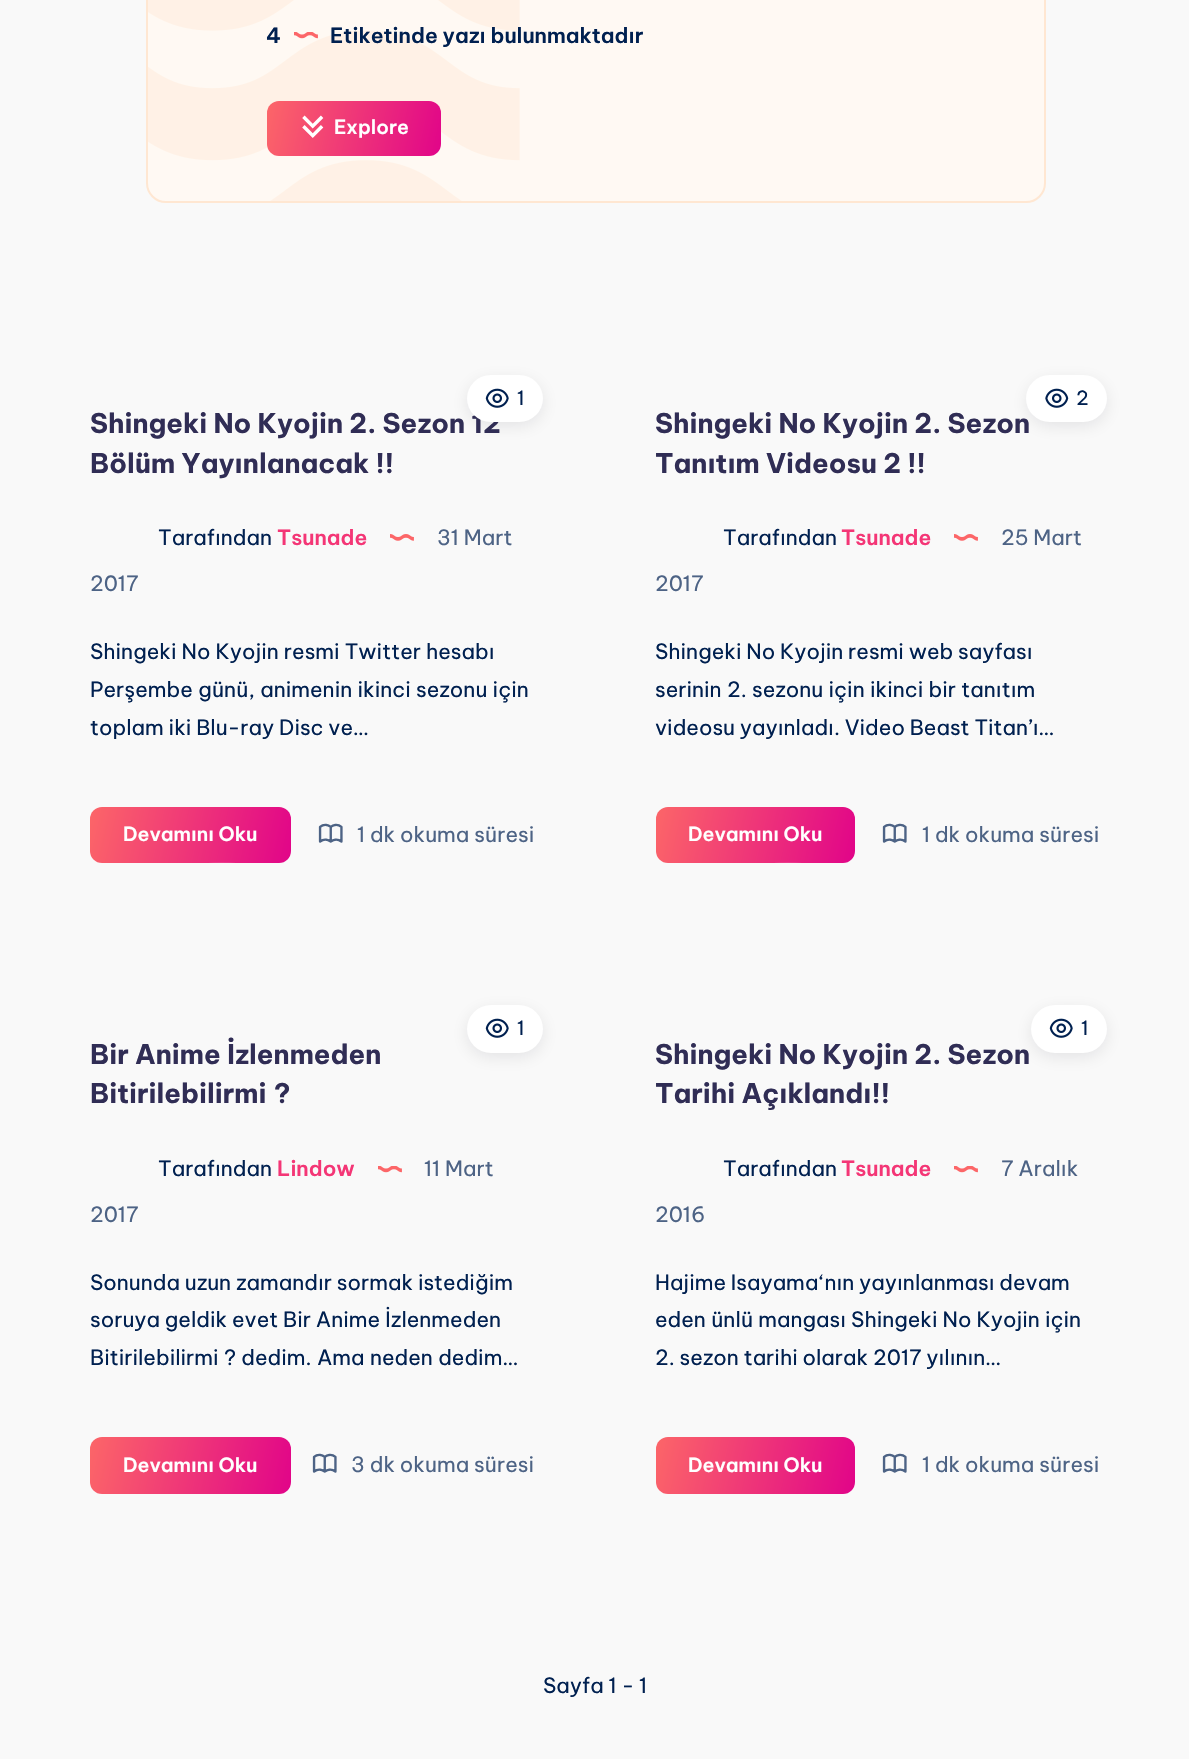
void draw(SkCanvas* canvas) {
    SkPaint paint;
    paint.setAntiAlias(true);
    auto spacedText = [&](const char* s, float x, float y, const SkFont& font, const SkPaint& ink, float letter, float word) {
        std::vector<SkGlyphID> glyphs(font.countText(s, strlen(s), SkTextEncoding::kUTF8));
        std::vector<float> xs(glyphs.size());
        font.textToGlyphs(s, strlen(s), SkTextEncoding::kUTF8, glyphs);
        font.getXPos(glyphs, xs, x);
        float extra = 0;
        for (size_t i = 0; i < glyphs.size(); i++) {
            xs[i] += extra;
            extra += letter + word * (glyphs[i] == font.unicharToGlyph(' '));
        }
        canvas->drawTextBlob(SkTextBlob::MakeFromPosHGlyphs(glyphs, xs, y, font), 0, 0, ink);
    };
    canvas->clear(0xFFF9F9F9);
    paint.setColor(0xFFFFF9F3);
    canvas->drawRoundRect(SkRect::MakeXYWH(147, -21, 898, 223), 19, 19, paint);
    paint.setStyle(SkPaint::kStroke_Style);
    paint.setStrokeWidth(2);
    paint.setColor(0xFFFFE7D2);
    canvas->drawRoundRect(SkRect::MakeXYWH(147, -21, 898, 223), 19, 19, paint);
    canvas->drawImageRect(SkImages::DeferredFromEncodedData(SkData::MakeFromFileName("img1.png")), SkRect::MakeXYWH(148, 0, 372, 201), SkSamplingOptions());
    SkFont font1(fontMgr->matchFamilyStyle("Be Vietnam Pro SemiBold", SkFontStyle(600, SkFontStyle::kNormal_Width, SkFontStyle::kUpright_Slant)), 21);
    font1.setSubpixel(true);
    paint.setStyle(SkPaint::kFill_Style);
    paint.setColor(0xFF002050);
    canvas->drawString("4", 266, 43, font1, paint);
    canvas->drawImageRect(SkImages::DeferredFromEncodedData(SkData::MakeFromFileName("img2.png")), SkRect::MakeXYWH(294, 32, 24, 7), SkSamplingOptions());
    canvas->drawString("Etiketinde yazı bulunmaktadır", 330, 43, font1, paint);
    {
        const SkColor colors[] = {0xFFFC6668, 0xFFE10489};
        const float stops[] = {0, 1};
        const SkPoint ends[] = {{265, 108}, {443, 149}};
        paint.setShader(SkGradientShader::MakeLinear(ends, colors, stops, 2, SkTileMode::kClamp));
        paint.setAlpha(255);
    }
    canvas->drawRoundRect(SkRect::MakeXYWH(267, 101, 174, 55), 12, 12, paint);
    canvas->drawImageRect(SkImages::DeferredFromEncodedData(SkData::MakeFromFileName("img3.png")), SkRect::MakeXYWH(302, 115, 22, 23), SkSamplingOptions());
    SkFont font2(fontMgr->matchFamilyStyle("Be Vietnam Pro SemiBold", SkFontStyle(600, SkFontStyle::kNormal_Width, SkFontStyle::kUpright_Slant)), 19.5f);
    font2.setSubpixel(true);
    paint.setShader(nullptr);
    paint.setColor(0xFFFFFFFF);
    canvas->drawString("Explore", 334, 134, font2, paint);
    paint.setColor(0x1A070A19);
    paint.setMaskFilter(SkMaskFilter::MakeBlur(kNormal_SkBlurStyle, 9));
    canvas->drawRoundRect(SkRect::MakeXYWH(468, 381, 74, 44), 22, 22, paint);
    paint.setMaskFilter(nullptr);
    SkFont font3(fontMgr->matchFamilyStyle("Be Vietnam Pro", SkFontStyle::Bold()), 27);
    font3.setSubpixel(true);
    paint.setColor(0xFF302D55);
    canvas->drawString("Shingeki No Kyojin 2. Sezon 12", 90, 433, font3, paint);
    paint.setColor(0xFFFFFFFF);
    canvas->drawRoundRect(SkRect::MakeXYWH(467, 375, 76, 47), 23.5f, 23.5f, paint);
    canvas->drawImageRect(SkImages::DeferredFromEncodedData(SkData::MakeFromFileName("img4.png")), SkRect::MakeXYWH(485, 388, 24, 20), SkSamplingOptions());
    SkFont font4(fontMgr->matchFamilyStyle("Be Vietnam Pro", SkFontStyle::Normal()), 19.5f);
    font4.setSubpixel(true);
    paint.setColor(0xFF002050);
    canvas->drawString("1", 517, 405, font4, paint);
    paint.setColor(0xFF302D55);
    canvas->drawString("Bölüm Yayınlanacak !!", 90, 473, font3, paint);
    SkFont font5(fontMgr->matchFamilyStyle("Be Vietnam Pro", SkFontStyle::Normal()), 21);
    font5.setSubpixel(true);
    paint.setColor(0xFF002050);
    canvas->drawString("Tarafından", 158, 545, font5, paint);
    canvas->drawImageRect(SkImages::DeferredFromEncodedData(SkData::MakeFromFileName("img5.png")), SkRect::MakeXYWH(390, 534, 24, 7), SkSamplingOptions());
    paint.setColor(0xFF4D6385);
    canvas->drawString("31 Mart", 437, 545, font5, paint);
    canvas->drawString("2017", 90, 591, font5, paint);
    paint.setColor(0xFFF43676);
    canvas->drawString("Tsunade", 277, 545, font1, paint);
    paint.setColor(0xFF002050);
    spacedText("Shingeki No Kyojin resmi Twitter hesabı", 90, 659, font5, paint, 0, 0.25f);
    spacedText("Perşembe günü, animenin ikinci sezonu için", 90, 697, font5, paint, 0, 0.5f);
    canvas->drawString("toplam iki Blu-ray Disc ve…", 90, 735, font5, paint);
    {
        const SkColor colors[] = {0xFFFC6668, 0xFFE10489};
        const float stops[] = {0, 1};
        const SkPoint ends[] = {{89, 811}, {292, 858}};
        paint.setShader(SkGradientShader::MakeLinear(ends, colors, stops, 2, SkTileMode::kClamp));
        paint.setAlpha(255);
    }
    canvas->drawRoundRect(SkRect::MakeXYWH(90, 807, 201, 56), 12, 12, paint);
    paint.setShader(nullptr);
    paint.setColor(0xFFFFFFFF);
    canvas->drawString("Devamını Oku", 123, 841, font2, paint);
    canvas->drawImageRect(SkImages::DeferredFromEncodedData(SkData::MakeFromFileName("img6.png")), SkRect::MakeXYWH(209, 862, 26, 1), SkSamplingOptions());
    canvas->drawImageRect(SkImages::DeferredFromEncodedData(SkData::MakeFromFileName("img7.png")), SkRect::MakeXYWH(318, 823, 25, 20), SkSamplingOptions());
    paint.setColor(0xFF4D6385);
    canvas->drawString("1 dk okuma süresi", 357, 842, font5, paint);
    paint.setColor(0x1A070A19);
    paint.setMaskFilter(SkMaskFilter::MakeBlur(kNormal_SkBlurStyle, 9));
    canvas->drawRoundRect(SkRect::MakeXYWH(1028, 381, 78, 44), 22, 22, paint);
    paint.setMaskFilter(nullptr);
    paint.setColor(0xFF302D55);
    canvas->drawString("Shingeki No Kyojin 2. Sezon", 655, 433, font3, paint);
    paint.setColor(0xFFFFFFFF);
    canvas->drawRoundRect(SkRect::MakeXYWH(1026, 375, 81, 47), 23.5f, 23.5f, paint);
    canvas->drawImageRect(SkImages::DeferredFromEncodedData(SkData::MakeFromFileName("img8.png")), SkRect::MakeXYWH(1045, 388, 24, 20), SkSamplingOptions());
    paint.setColor(0xFF002050);
    canvas->drawString("2", 1076, 405, font4, paint);
    paint.setColor(0xFF302D55);
    canvas->drawString("Tanıtım Videosu 2 !!", 655, 473, font3, paint);
    paint.setColor(0xFF002050);
    canvas->drawString("Tarafından", 723, 545, font5, paint);
    canvas->drawImageRect(SkImages::DeferredFromEncodedData(SkData::MakeFromFileName("img5.png")), SkRect::MakeXYWH(954, 534, 24, 7), SkSamplingOptions());
    paint.setColor(0xFF4D6385);
    canvas->drawString("25 Mart", 1001, 545, font5, paint);
    canvas->drawString("2017", 655, 591, font5, paint);
    paint.setColor(0xFFF43676);
    canvas->drawString("Tsunade", 841, 545, font1, paint);
    paint.setColor(0xFF002050);
    canvas->drawString("Shingeki No Kyojin resmi web sayfası", 655, 659, font5, paint);
    spacedText("serinin 2. sezonu için ikinci bir tanıtım", 655, 697, font5, paint, 0, 0.5f);
    canvas->drawString("videosu yayınladı. Video Beast Titan’ı…", 655, 735, font5, paint);
    {
        const SkColor colors[] = {0xFFFC6668, 0xFFE10489};
        const float stops[] = {0, 1};
        const SkPoint ends[] = {{654, 811}, {856, 858}};
        paint.setShader(SkGradientShader::MakeLinear(ends, colors, stops, 2, SkTileMode::kClamp));
        paint.setAlpha(255);
    }
    canvas->drawRoundRect(SkRect::MakeXYWH(656, 807, 199, 56), 12, 12, paint);
    paint.setShader(nullptr);
    paint.setColor(0xFFFFFFFF);
    canvas->drawString("Devamını Oku", 688, 841, font2, paint);
    canvas->drawImageRect(SkImages::DeferredFromEncodedData(SkData::MakeFromFileName("img9.png")), SkRect::MakeXYWH(775, 862, 26, 1), SkSamplingOptions());
    canvas->drawImageRect(SkImages::DeferredFromEncodedData(SkData::MakeFromFileName("img7.png")), SkRect::MakeXYWH(882, 823, 25, 20), SkSamplingOptions());
    paint.setColor(0xFF4D6385);
    canvas->drawString("1 dk okuma süresi", 922, 842, font5, paint);
    paint.setColor(0x1A070A19);
    paint.setMaskFilter(SkMaskFilter::MakeBlur(kNormal_SkBlurStyle, 9));
    canvas->drawRoundRect(SkRect::MakeXYWH(468, 1011, 74, 45), 22.5f, 22.5f, paint);
    paint.setMaskFilter(nullptr);
    paint.setColor(0xFFFFFFFF);
    canvas->drawRoundRect(SkRect::MakeXYWH(467, 1005, 76, 48), 24, 24, paint);
    canvas->drawImageRect(SkImages::DeferredFromEncodedData(SkData::MakeFromFileName("img4.png")), SkRect::MakeXYWH(485, 1018, 24, 20), SkSamplingOptions());
    paint.setColor(0xFF002050);
    canvas->drawString("1", 517, 1035, font4, paint);
    paint.setColor(0xFF302D55);
    canvas->drawString("Bir Anime İzlenmeden", 90, 1064, font3, paint);
    spacedText("Bitirilebilirmi ?", 90, 1103, font3, paint, 0, 1);
    paint.setColor(0xFF002050);
    canvas->drawString("Tarafından", 158, 1176, font5, paint);
    paint.setColor(0xFFF43676);
    canvas->drawString("Lindow", 277, 1176, font1, paint);
    canvas->drawImageRect(SkImages::DeferredFromEncodedData(SkData::MakeFromFileName("img10.png")), SkRect::MakeXYWH(378, 1166, 24, 7), SkSamplingOptions());
    paint.setColor(0xFF4D6385);
    canvas->drawString("11 Mart", 424, 1176, font5, paint);
    canvas->drawString("2017", 90, 1222, font5, paint);
    paint.setColor(0xFF002050);
    canvas->drawString("Sonunda uzun zamandır sormak istediğim", 90, 1290, font5, paint);
    canvas->drawString("soruya geldik evet Bir Anime İzlenmeden", 90, 1327, font5, paint);
    spacedText("Bitirilebilirmi ? dedim. Ama neden dedim…", 90, 1365, font5, paint, 0, 0.5f);
    {
        const SkColor colors[] = {0xFFFC6668, 0xFFE10489};
        const float stops[] = {0, 1};
        const SkPoint ends[] = {{89, 1442}, {292, 1489}};
        paint.setShader(SkGradientShader::MakeLinear(ends, colors, stops, 2, SkTileMode::kClamp));
        paint.setAlpha(255);
    }
    canvas->drawRoundRect(SkRect::MakeXYWH(90, 1437, 201, 57), 12, 12, paint);
    paint.setShader(nullptr);
    paint.setColor(0xFFFFFFFF);
    canvas->drawString("Devamını Oku", 123, 1472, font2, paint);
    canvas->drawImageRect(SkImages::DeferredFromEncodedData(SkData::MakeFromFileName("img7.png")), SkRect::MakeXYWH(312, 1453, 25, 20), SkSamplingOptions());
    paint.setColor(0xFF4D6385);
    canvas->drawString("3 dk okuma süresi", 351, 1472, font5, paint);
    paint.setColor(0x1A070A19);
    paint.setMaskFilter(SkMaskFilter::MakeBlur(kNormal_SkBlurStyle, 9));
    canvas->drawRoundRect(SkRect::MakeXYWH(1032, 1011, 74, 45), 22.5f, 22.5f, paint);
    paint.setMaskFilter(nullptr);
    paint.setColor(0xFFFFFFFF);
    canvas->drawRoundRect(SkRect::MakeXYWH(1031, 1005, 76, 48), 24, 24, paint);
    canvas->drawImageRect(SkImages::DeferredFromEncodedData(SkData::MakeFromFileName("img4.png")), SkRect::MakeXYWH(1049, 1018, 24, 20), SkSamplingOptions());
    paint.setColor(0xFF002050);
    canvas->drawString("1", 1081, 1035, font4, paint);
    paint.setColor(0xFF302D55);
    canvas->drawString("Shingeki No Kyojin 2. Sezon", 655, 1064, font3, paint);
    canvas->drawString("Tarihi Açıklandı!!", 655, 1103, font3, paint);
    paint.setColor(0xFF002050);
    canvas->drawString("Tarafından", 723, 1176, font5, paint);
    canvas->drawImageRect(SkImages::DeferredFromEncodedData(SkData::MakeFromFileName("img10.png")), SkRect::MakeXYWH(954, 1166, 24, 7), SkSamplingOptions());
    paint.setColor(0xFF4D6385);
    canvas->drawString("7 Aralık", 1001, 1176, font5, paint);
    canvas->drawString("2016", 655, 1222, font5, paint);
    paint.setColor(0xFFF43676);
    canvas->drawString("Tsunade", 841, 1176, font1, paint);
    paint.setColor(0xFF002050);
    canvas->drawString("Hajime Isayama‘nın yayınlanması devam", 655, 1290, font5, paint);
    spacedText("eden ünlü mangası Shingeki No Kyojin için", 655, 1327, font5, paint, 0, 0.25f);
    canvas->drawString("2. sezon tarihi olarak 2017 yılının…", 655, 1365, font5, paint);
    {
        const SkColor colors[] = {0xFFFC6668, 0xFFE10489};
        const float stops[] = {0, 1};
        const SkPoint ends[] = {{654, 1442}, {856, 1489}};
        paint.setShader(SkGradientShader::MakeLinear(ends, colors, stops, 2, SkTileMode::kClamp));
        paint.setAlpha(255);
    }
    canvas->drawRoundRect(SkRect::MakeXYWH(656, 1437, 199, 57), 12, 12, paint);
    paint.setShader(nullptr);
    paint.setColor(0xFFFFFFFF);
    canvas->drawString("Devamını Oku", 688, 1472, font2, paint);
    canvas->drawImageRect(SkImages::DeferredFromEncodedData(SkData::MakeFromFileName("img7.png")), SkRect::MakeXYWH(882, 1453, 25, 20), SkSamplingOptions());
    paint.setColor(0xFF4D6385);
    canvas->drawString("1 dk okuma süresi", 922, 1472, font5, paint);
    paint.setColor(0xFF002050);
    canvas->drawString("Sayfa 1 - 1", 543, 1693, font5, paint);
}
